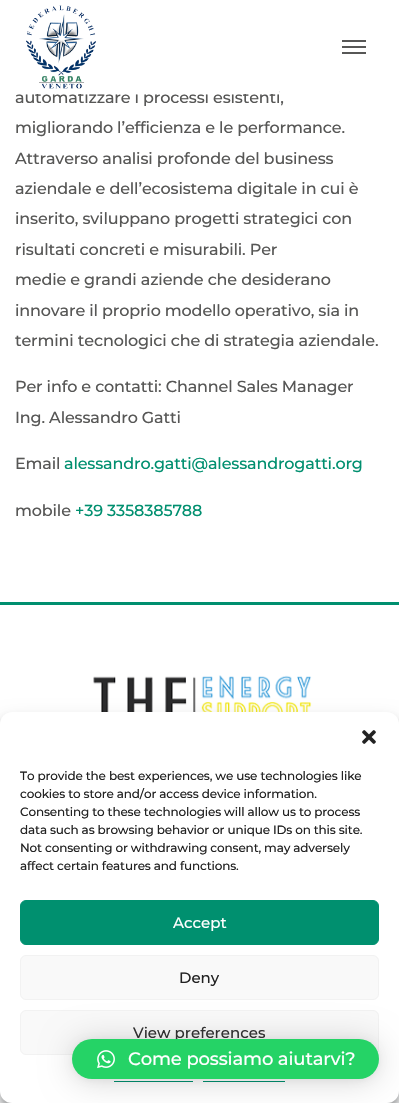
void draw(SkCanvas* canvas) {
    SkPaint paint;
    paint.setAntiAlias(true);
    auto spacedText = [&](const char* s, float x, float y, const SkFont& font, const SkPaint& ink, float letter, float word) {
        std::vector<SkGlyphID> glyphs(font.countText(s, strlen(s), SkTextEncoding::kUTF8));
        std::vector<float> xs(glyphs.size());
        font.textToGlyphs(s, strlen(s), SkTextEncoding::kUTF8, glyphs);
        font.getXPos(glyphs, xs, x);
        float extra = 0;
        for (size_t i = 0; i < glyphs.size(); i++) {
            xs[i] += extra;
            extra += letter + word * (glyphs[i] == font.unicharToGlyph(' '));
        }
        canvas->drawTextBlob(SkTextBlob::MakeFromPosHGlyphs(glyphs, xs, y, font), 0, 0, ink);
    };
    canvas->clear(0xFFFFFFFF);
    SkFont font1(fontMgr->matchFamilyStyle("Montserrat", SkFontStyle(500, SkFontStyle::kNormal_Width, SkFontStyle::kUpright_Slant)), 16);
    font1.setSubpixel(true);
    paint.setColor(0xFF575756);
    spacedText("automatizzare i processi esistenti,", 15, 103, font1, paint, -0.15f, 0);
    paint.setColor(0xFFFFFFFF);
    canvas->drawRect(SkRect::MakeXYWH(36, 90, 243, 4), paint);
    canvas->drawImageRect(SkImages::DeferredFromEncodedData(SkData::MakeFromFileName("img1.png")), SkRect::MakeXYWH(26, 5, 71, 84), SkSamplingOptions());
    paint.setColor(0xFF575756);
    canvas->drawRect(SkRect::MakeXYWH(342, 40, 24, 2), paint);
    canvas->drawRect(SkRect::MakeXYWH(342, 46, 24, 2), paint);
    canvas->drawRect(SkRect::MakeXYWH(342, 52, 24, 2), paint);
    spacedText("migliorando l’efficienza e le performance.", 15, 133, font1, paint, -0.15f, 0);
    spacedText("Attraverso analisi profonde del business", 15, 164, font1, paint, -0.15f, 0);
    spacedText("aziendale e dell’ecosistema digitale in cui è", 15, 194, font1, paint, -0.15f, 0);
    spacedText("inserito, sviluppano progetti strategici con", 15, 224, font1, paint, -0.15f, 0);
    spacedText("risultati concreti e misurabili. Per", 15, 255, font1, paint, -0.15f, 0);
    spacedText("medie e grandi aziende che desiderano", 15, 285, font1, paint, -0.15f, 0);
    spacedText("innovare il proprio modello operativo, sia in", 15, 316, font1, paint, -0.15f, 0);
    spacedText("termini tecnologici che di strategia aziendale.", 15, 346, font1, paint, -0.15f, 0);
    spacedText("Per info e contatti: Channel Sales Manager", 15, 392, font1, paint, -0.15f, 0);
    spacedText("Ing. Alessandro Gatti", 15, 423, font1, paint, -0.15f, 0);
    spacedText("Email", 15, 469, font1, paint, -0.15f, 0);
    paint.setColor(0xFF008F6F);
    spacedText("alessandro.gatti@alessandrogatti.org", 64, 469, font1, paint, -0.15f, 0);
    paint.setColor(0xFF575756);
    spacedText("mobile", 15, 516, font1, paint, -0.15f, 0);
    paint.setColor(0xFF008F6F);
    spacedText("+39 3358385788", 75, 516, font1, paint, -0.15f, 0);
    canvas->drawRect(SkRect::MakeXYWH(0, 602, 399, 3), paint);
    canvas->drawImageRect(SkImages::DeferredFromEncodedData(SkData::MakeFromFileName("img2.png")), SkRect::MakeXYWH(93, 675, 219, 37), SkSamplingOptions());
    {
        const SkColor colors[] = {0xFFF9FAFB, 0xFFFFFFFF};
        const float stops[] = {0, 1};
        const SkPoint ends[] = {{199, 1076}, {200, 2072}};
        paint.setShader(SkGradientShader::MakeLinear(ends, colors, stops, 2, SkTileMode::kClamp));
        paint.setAlpha(255);
    }
    canvas->drawRect(SkRect::MakeXYWH(0, 1091, 399, 12), paint);
    paint.setShader(nullptr);
    paint.setColor(0x3B000000);
    paint.setMaskFilter(SkMaskFilter::MakeBlur(kNormal_SkBlurStyle, 3));
    canvas->drawRoundRect(SkRect::MakeXYWH(0, 718, 399, 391), 12, 12, paint);
    paint.setMaskFilter(nullptr);
    paint.setColor(0x30000000);
    paint.setMaskFilter(SkMaskFilter::MakeBlur(kNormal_SkBlurStyle, 10));
    canvas->drawRoundRect(SkRect::MakeXYWH(0, 722, 399, 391), 12, 12, paint);
    paint.setMaskFilter(nullptr);
    paint.setColor(0xFFFFFFFF);
    canvas->drawRoundRect(SkRect::MakeXYWH(0, 712, 399, 391), 12, 12, paint);
    canvas->drawImageRect(SkImages::DeferredFromEncodedData(SkData::MakeFromFileName("img3.png")), SkRect::MakeXYWH(362, 730, 14, 14), SkSamplingOptions());
    SkFont font2(fontMgr->matchFamilyStyle("Montserrat", SkFontStyle(500, SkFontStyle::kNormal_Width, SkFontStyle::kUpright_Slant)), 12);
    font2.setSubpixel(true);
    paint.setColor(0xFF222222);
    spacedText("To provide the best experiences, we use technologies like", 20, 780, font2, paint, -0.15f, 0);
    spacedText("cookies to store and/or access device information.", 20, 798, font2, paint, -0.15f, 0);
    spacedText("Consenting to these technologies will allow us to process", 20, 816, font2, paint, -0.15f, 0);
    spacedText("data such as browsing behavior or unique IDs on this site.", 20, 834, font2, paint, -0.15f, 0);
    spacedText("Not consenting or withdrawing consent, may adversely", 20, 852, font2, paint, -0.15f, 0);
    spacedText("affect certain features and functions.", 20, 870, font2, paint, -0.15f, 0);
    paint.setColor(0xFF00906F);
    canvas->drawRoundRect(SkRect::MakeXYWH(20.5f, 900.5f, 358, 44), 5.5f, 5.5f, paint);
    paint.setStyle(SkPaint::kStroke_Style);
    paint.setStrokeWidth(1);
    canvas->drawRoundRect(SkRect::MakeXYWH(20.5f, 900.5f, 358, 44), 5.5f, 5.5f, paint);
    SkFont font3(fontMgr->matchFamilyStyle("Montserrat", SkFontStyle(500, SkFontStyle::kNormal_Width, SkFontStyle::kUpright_Slant)), 15);
    font3.setSubpixel(true);
    paint.setStyle(SkPaint::kFill_Style);
    paint.setColor(0xFFFFFFFF);
    canvas->drawString("Accept", 173, 928, font3, paint);
    paint.setColor(0xFFF9F9F9);
    canvas->drawRoundRect(SkRect::MakeXYWH(20.5f, 955.5f, 358, 44), 5.5f, 5.5f, paint);
    paint.setStyle(SkPaint::kStroke_Style);
    paint.setColor(0xFFF2F2F2);
    canvas->drawRoundRect(SkRect::MakeXYWH(20.5f, 955.5f, 358, 44), 5.5f, 5.5f, paint);
    paint.setStyle(SkPaint::kFill_Style);
    paint.setColor(0xFF222222);
    canvas->drawString("Deny", 179, 983, font3, paint);
    paint.setColor(0xFFF9F9F9);
    canvas->drawRoundRect(SkRect::MakeXYWH(20.5f, 1010.5f, 358, 44), 5.5f, 5.5f, paint);
    paint.setStyle(SkPaint::kStroke_Style);
    paint.setColor(0xFFF2F2F2);
    canvas->drawRoundRect(SkRect::MakeXYWH(20.5f, 1010.5f, 358, 44), 5.5f, 5.5f, paint);
    paint.setStyle(SkPaint::kFill_Style);
    paint.setColor(0xFF333333);
    canvas->drawString("View preferences", 133, 1038, font3, paint);
    paint.setColor(0xFF00906F);
    canvas->drawRect(SkRect::MakeXYWH(114, 1081, 79, 1), paint);
    canvas->drawRect(SkRect::MakeXYWH(203, 1081, 82, 1), paint);
    paint.setColor(0x29000000);
    paint.setMaskFilter(SkMaskFilter::MakeBlur(kNormal_SkBlurStyle, 16));
    canvas->drawRoundRect(SkRect::MakeXYWH(72, 1041, 307, 40), 20, 20, paint);
    paint.setMaskFilter(nullptr);
    paint.setColor(0x0F000000);
    paint.setMaskFilter(SkMaskFilter::MakeBlur(kNormal_SkBlurStyle, 3));
    canvas->drawRoundRect(SkRect::MakeXYWH(72, 1040, 307, 40), 20, 20, paint);
    paint.setMaskFilter(nullptr);
    paint.setColor(0xFF25D366);
    canvas->drawRoundRect(SkRect::MakeXYWH(72, 1039, 307, 40), 20, 20, paint);
    canvas->drawImageRect(SkImages::DeferredFromEncodedData(SkData::MakeFromFileName("img4.png")), SkRect::MakeXYWH(97, 1050, 18, 19), SkSamplingOptions());
    SkFont font4(fontMgr->matchFamilyStyle("Montserrat", SkFontStyle(500, SkFontStyle::kNormal_Width, SkFontStyle::kUpright_Slant)), 18);
    font4.setSubpixel(true);
    paint.setColor(0xFFFFFFFF);
    spacedText("Come possiamo aiutarvi?", 128, 1065, font4, paint, -0.15f, 0);
}
